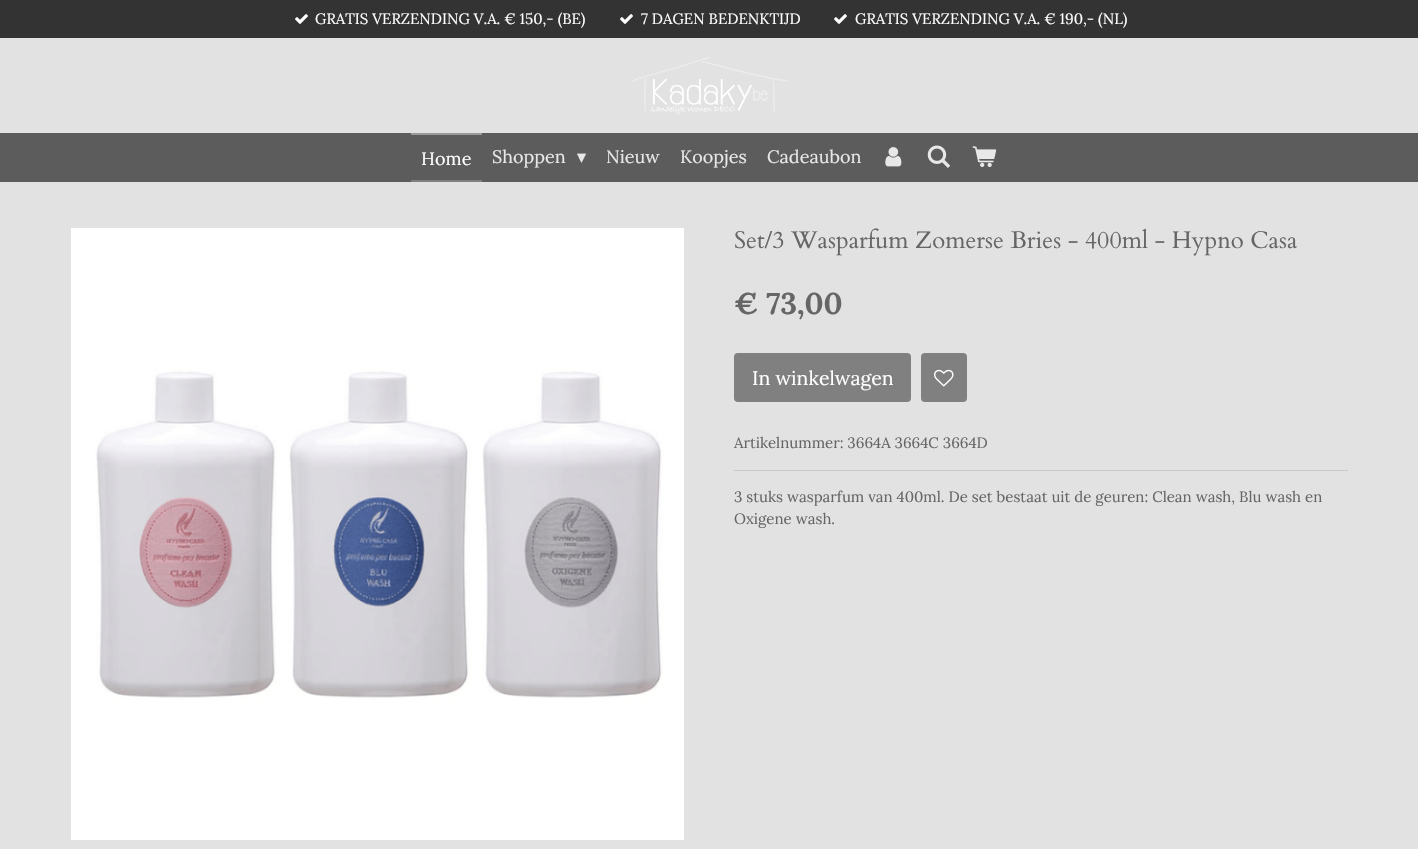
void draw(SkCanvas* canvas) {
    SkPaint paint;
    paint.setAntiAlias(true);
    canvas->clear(0xFF333333);
    canvas->drawImageRect(SkImages::DeferredFromEncodedData(SkData::MakeFromFileName("img1.png")), SkRect::MakeXYWH(295, 14, 13, 10), SkSamplingOptions());
    SkFont font1(fontMgr->matchFamilyStyle("Lora", SkFontStyle::Normal()), 15);
    font1.setSubpixel(true);
    paint.setColor(0xFFFFFFFF);
    canvas->drawString("GRATIS VERZENDING V.A. € 150,- (BE)", 315, 24, font1, paint);
    canvas->drawImageRect(SkImages::DeferredFromEncodedData(SkData::MakeFromFileName("img1.png")), SkRect::MakeXYWH(620, 14, 13, 10), SkSamplingOptions());
    canvas->drawString("7 DAGEN BEDENKTIJD", 641, 24, font1, paint);
    canvas->drawImageRect(SkImages::DeferredFromEncodedData(SkData::MakeFromFileName("img1.png")), SkRect::MakeXYWH(834, 14, 13, 10), SkSamplingOptions());
    canvas->drawString("GRATIS VERZENDING V.A. € 190,- (NL)", 855, 24, font1, paint);
    paint.setColor(0xFFE2E2E2);
    canvas->drawRect(SkRect::MakeXYWH(0, 38, 1418, 95), paint);
    canvas->drawImageRect(SkImages::DeferredFromEncodedData(SkData::MakeFromFileName("img2.png")), SkRect::MakeXYWH(631, 57, 156, 58), SkSamplingOptions());
    paint.setColor(0xFF5C5C5C);
    canvas->drawRect(SkRect::MakeXYWH(0, 133, 1418, 49), paint);
    paint.setColor(0xFF999999);
    canvas->drawRect(SkRect::MakeXYWH(411, 133, 71, 2), paint);
    paint.setColor(0xFF808080);
    canvas->drawRect(SkRect::MakeXYWH(411, 180, 71, 2), paint);
    SkFont font2(fontMgr->matchFamilyStyle("Lora", SkFontStyle::Normal()), 18);
    font2.setSubpixel(true);
    paint.setColor(0xFFFFFFFF);
    canvas->drawString("Home", 421, 165, font2, paint);
    paint.setColor(0xFFE8E8E8);
    canvas->drawString("Shoppen", 492, 163, font2, paint);
    SkFont font3(fontMgr->matchFamilyStyle("DejaVu Sans", SkFontStyle::Normal()), 18);
    font3.setSubpixel(true);
    canvas->drawString("▾", 577, 163, font3, paint);
    canvas->drawString("Nieuw", 606, 163, font2, paint);
    canvas->drawString("Koopjes", 680, 163, font2, paint);
    canvas->drawString("Cadeaubon", 767, 163, font2, paint);
    canvas->drawImageRect(SkImages::DeferredFromEncodedData(SkData::MakeFromFileName("img3.png")), SkRect::MakeXYWH(885, 147, 17, 20), SkSamplingOptions());
    canvas->drawImageRect(SkImages::DeferredFromEncodedData(SkData::MakeFromFileName("img4.png")), SkRect::MakeXYWH(927, 145, 24, 23), SkSamplingOptions());
    canvas->drawImageRect(SkImages::DeferredFromEncodedData(SkData::MakeFromFileName("img5.png")), SkRect::MakeXYWH(972, 146, 25, 21), SkSamplingOptions());
    paint.setColor(0xFFE2E2E2);
    canvas->drawRect(SkRect::MakeXYWH(0, 182, 1418, 667), paint);
    canvas->drawImageRect(SkImages::DeferredFromEncodedData(SkData::MakeFromFileName("img6.png")), SkRect::MakeXYWH(71, 228, 613, 612), SkSamplingOptions());
    SkFont font4(fontMgr->matchFamilyStyle("Cardo", SkFontStyle::Normal()), 24);
    font4.setSubpixel(true);
    paint.setColor(0xFF666666);
    canvas->drawString("Set/3 Wasparfum Zomerse Bries - 400ml - Hypno Casa", 734, 248, font4, paint);
    SkFont font5(fontMgr->matchFamilyStyle("Lora", SkFontStyle::Bold()), 30);
    font5.setSubpixel(true);
    canvas->drawString("€ 73,00", 734, 314, font5, paint);
    paint.setColor(0xFF808080);
    canvas->drawRoundRect(SkRect::MakeXYWH(734, 353, 177, 49), 4, 4, paint);
    SkFont font6(fontMgr->matchFamilyStyle("Lora", SkFontStyle::Normal()), 19.5f);
    font6.setSubpixel(true);
    paint.setColor(0xFFFFFFFF);
    canvas->drawString("In winkelwagen", 752, 385, font6, paint);
    paint.setColor(0xFF808080);
    canvas->drawRoundRect(SkRect::MakeXYWH(921, 353, 46, 49), 4, 4, paint);
    canvas->drawImageRect(SkImages::DeferredFromEncodedData(SkData::MakeFromFileName("img7.png")), SkRect::MakeXYWH(934, 369, 20, 18), SkSamplingOptions());
    paint.setColor(0xFF666666);
    canvas->drawString("Artikelnummer: 3664A 3664C 3664D", 734, 448, font1, paint);
    paint.setColor(0xFFC9C9C9);
    canvas->drawRect(SkRect::MakeXYWH(734, 470, 614, 1), paint);
    paint.setColor(0xFF666666);
    canvas->drawString("3 stuks wasparfum van 400ml. De set bestaat uit de geuren: Clean wash, Blu wash en", 734, 502, font1, paint);
    canvas->drawString("Oxigene wash.", 734, 524, font1, paint);
}
